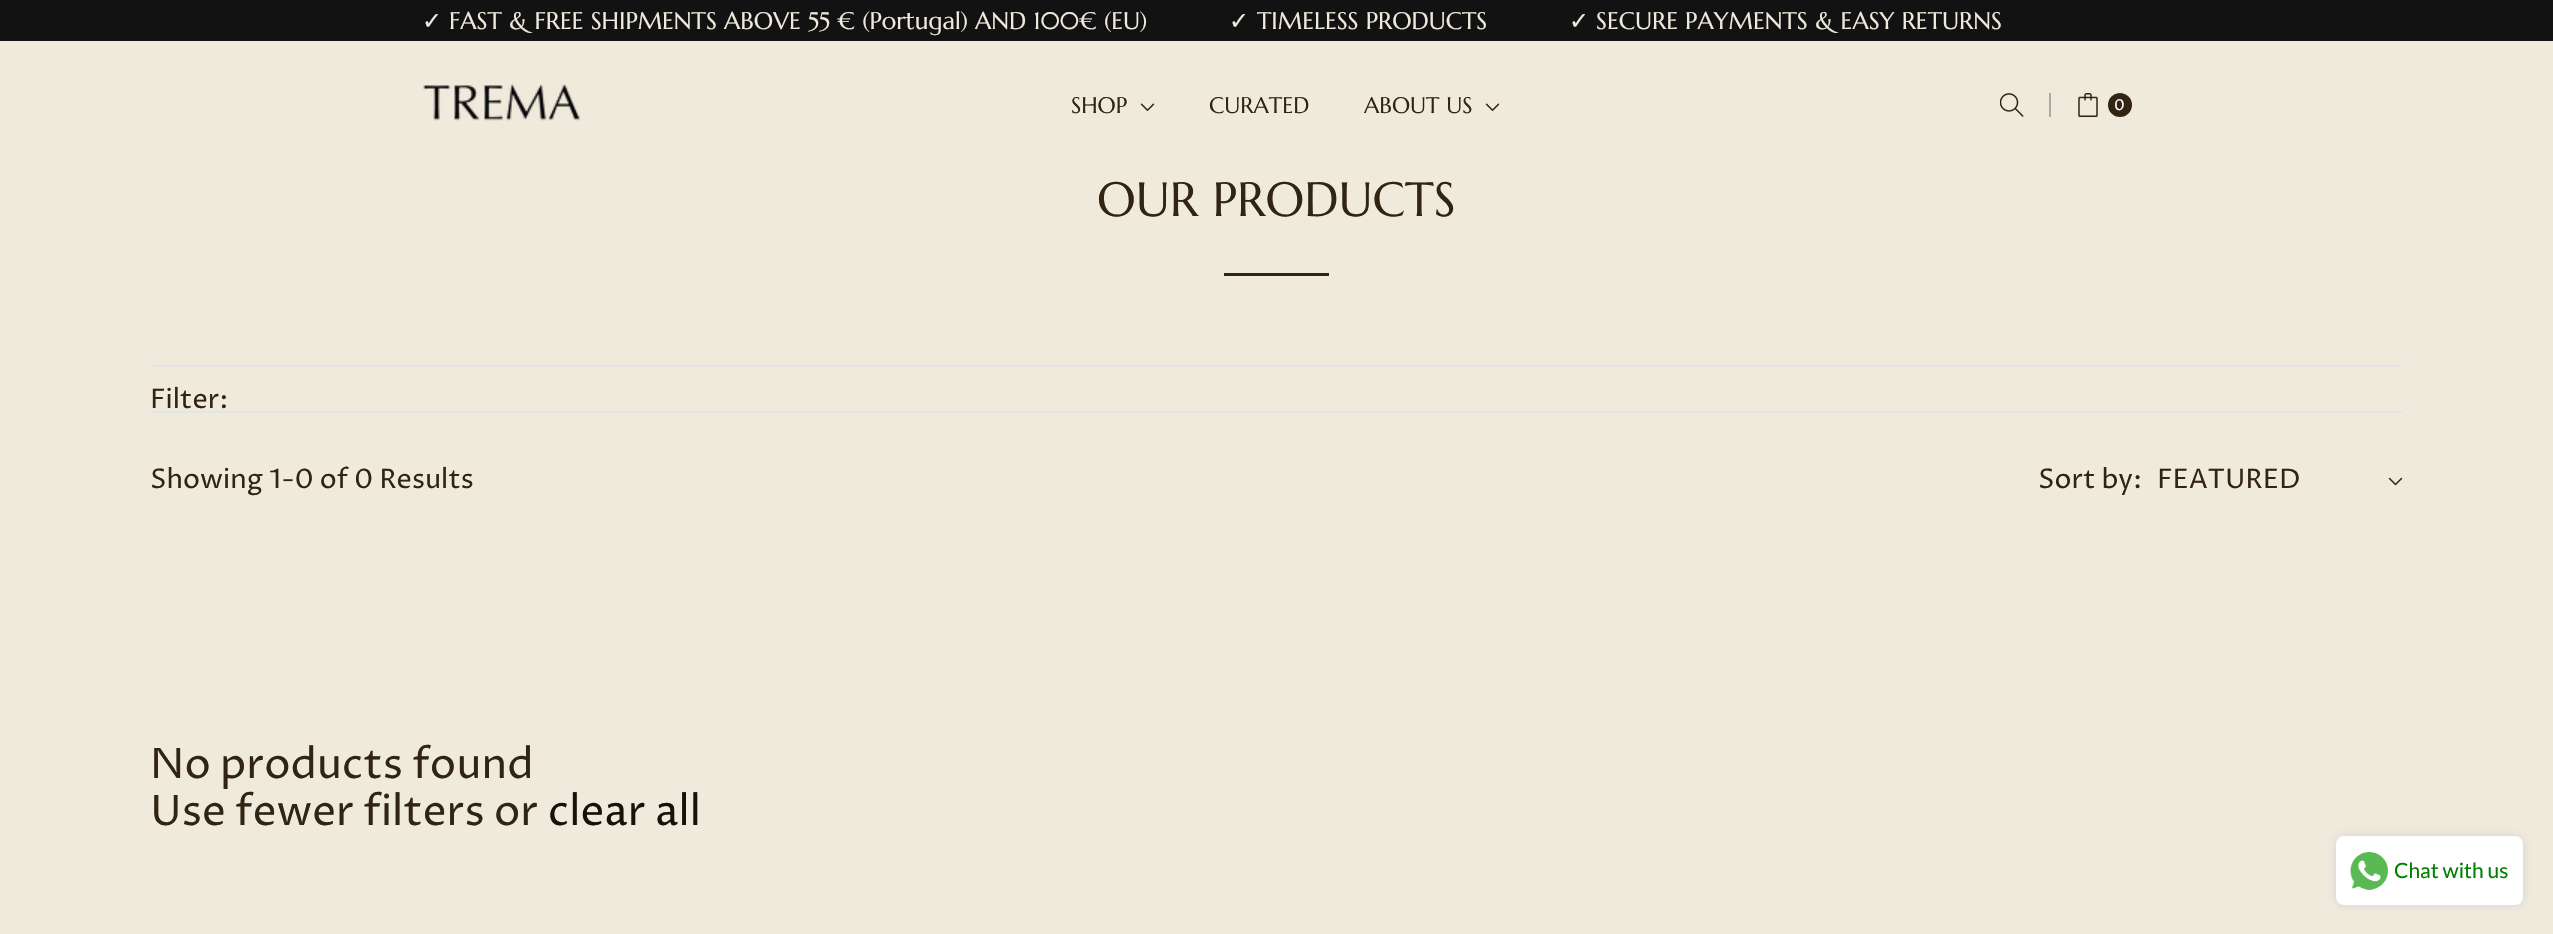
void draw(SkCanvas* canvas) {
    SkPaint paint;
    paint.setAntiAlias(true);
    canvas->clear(0xFFF0EADC);
    paint.setColor(0xFF121212);
    canvas->drawRect(SkRect::MakeXYWH(0, 0, 2553, 41), paint);
    SkFont font1(fontMgr->matchFamilyStyle("DejaVu Sans", SkFontStyle::Normal()), 24);
    font1.setSubpixel(true);
    paint.setColor(0xFFF0EADC);
    canvas->drawString("✓", 422, 29, font1, paint);
    SkFont font2(fontMgr->matchFamilyStyle("Marcellus", SkFontStyle::Normal()), 24);
    font2.setSubpixel(true);
    canvas->drawString("FAST & FREE SHIPMENTS ABOVE 55 € (Portugal) AND 100€ (EU)", 449, 29, font2, paint);
    canvas->drawString("✓", 1229, 29, font1, paint);
    canvas->drawString("TIMELESS PRODUCTS", 1257, 29, font2, paint);
    canvas->drawString("✓", 1569, 29, font1, paint);
    canvas->drawString("SECURE PAYMENTS & EASY RETURNS", 1596, 29, font2, paint);
    canvas->drawImageRect(SkImages::DeferredFromEncodedData(SkData::MakeFromFileName("img1.png")), SkRect::MakeXYWH(423, 84, 158, 37), SkSamplingOptions());
    SkFont font3(fontMgr->matchFamilyStyle("Marcellus", SkFontStyle::Normal()), 22.5f);
    font3.setSubpixel(true);
    paint.setColor(0xFF322413);
    canvas->drawString("SHOP", 1071, 113, font3, paint);
    canvas->drawImageRect(SkImages::DeferredFromEncodedData(SkData::MakeFromFileName("img2.png")), SkRect::MakeXYWH(1140, 103, 15, 8), SkSamplingOptions());
    canvas->drawString("CURATED", 1209, 113, font3, paint);
    canvas->drawString("ABOUT US", 1364, 113, font3, paint);
    canvas->drawImageRect(SkImages::DeferredFromEncodedData(SkData::MakeFromFileName("img2.png")), SkRect::MakeXYWH(1485, 103, 15, 8), SkSamplingOptions());
    canvas->drawImageRect(SkImages::DeferredFromEncodedData(SkData::MakeFromFileName("img3.png")), SkRect::MakeXYWH(2000, 93, 24, 24), SkSamplingOptions());
    paint.setColor(0xFFADA99F);
    canvas->drawRect(SkRect::MakeXYWH(2049, 93, 2, 24), paint);
    canvas->drawImageRect(SkImages::DeferredFromEncodedData(SkData::MakeFromFileName("img4.png")), SkRect::MakeXYWH(2078, 93, 20, 24), SkSamplingOptions());
    paint.setColor(0xFF322413);
    canvas->drawCircle(2120, 105, 12, paint);
    SkFont font4(fontMgr->matchFamilyStyle("Proza Libre", SkFontStyle::Normal()), 15);
    font4.setSubpixel(true);
    paint.setColor(0xFFFFFFFF);
    canvas->drawString("0", 2114, 110, font4, paint);
    SkFont font5(fontMgr->matchFamilyStyle("Marcellus", SkFontStyle::Normal()), 48);
    font5.setSubpixel(true);
    paint.setColor(0xFF322413);
    canvas->drawString("OUR PRODUCTS", 1097, 216, font5, paint);
    canvas->drawRect(SkRect::MakeXYWH(1224, 273, 105, 3), paint);
    paint.setColor(0xFFE5E5E5);
    canvas->drawRect(SkRect::MakeXYWH(150, 365, 2253, 2), paint);
    canvas->drawRect(SkRect::MakeXYWH(150, 411, 2253, 2), paint);
    SkFont font6(fontMgr->matchFamilyStyle("Proza Libre", SkFontStyle::Normal()), 27);
    font6.setSubpixel(true);
    paint.setColor(0xFF322413);
    canvas->drawString("Filter:", 150, 408, font6, paint);
    canvas->drawString("Showing 1-0 of 0 Results", 150, 488, font6, paint);
    canvas->drawString("Sort by:", 2038, 488, font6, paint);
    canvas->drawString("FEATURED", 2157, 488, font6, paint);
    canvas->drawImageRect(SkImages::DeferredFromEncodedData(SkData::MakeFromFileName("img5.png")), SkRect::MakeXYWH(2388, 477, 15, 9), SkSamplingOptions());
    SkFont font7(fontMgr->matchFamilyStyle("Proza Libre", SkFontStyle::Normal()), 42);
    font7.setSubpixel(true);
    canvas->drawString("No products found", 150, 778, font7, paint);
    canvas->drawString("Use fewer filters or", 150, 825, font7, paint);
    paint.setColor(0xFF181109);
    canvas->drawString("clear all", 548, 825, font7, paint);
    paint.setColor(0xFFD3D3D3);
    paint.setMaskFilter(SkMaskFilter::MakeBlur(kNormal_SkBlurStyle, 4));
    canvas->drawRoundRect(SkRect::MakeXYWH(2336, 836, 187, 69), 8, 8, paint);
    paint.setMaskFilter(nullptr);
    paint.setColor(0xFFFFFFFF);
    canvas->drawRoundRect(SkRect::MakeXYWH(2336, 836, 187, 69), 8, 8, paint);
    canvas->drawImageRect(SkImages::DeferredFromEncodedData(SkData::MakeFromFileName("img6.png")), SkRect::MakeXYWH(2350, 852, 38, 38), SkSamplingOptions());
    SkFont font8(fontMgr->matchFamilyStyle("Lato", SkFontStyle::Normal()), 21);
    font8.setSubpixel(true);
    paint.setColor(0xFF008000);
    canvas->drawString("Chat with us", 2394, 878, font8, paint);
}
